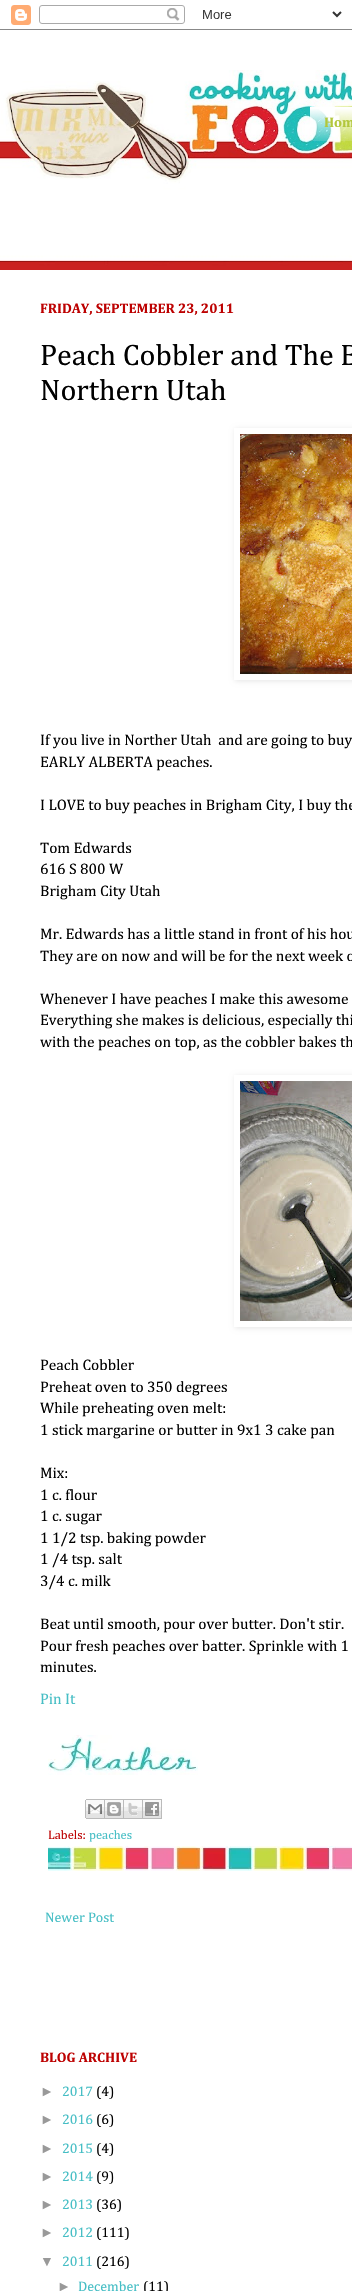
void draw(SkCanvas* canvas) {
    SkPaint paint;
    paint.setAntiAlias(true);
    canvas->clear(0xFFFFFFFF);
    canvas->drawImageRect(SkImages::DeferredFromEncodedData(SkData::MakeFromFileName("img1.png")), SkRect::MakeXYWH(0, 5, 352, 25), SkSamplingOptions());
    canvas->drawImageRect(SkImages::DeferredFromEncodedData(SkData::MakeFromFileName("img2.png")), SkRect::MakeXYWH(0, 70, 352, 200), SkSamplingOptions());
    canvas->drawImageRect(SkImages::DeferredFromEncodedData(SkData::MakeFromFileName("img3.png")), SkRect::MakeXYWH(310, 107, 42, 34), SkSamplingOptions());
    SkFont font1(fontMgr->matchFamilyStyle("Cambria", SkFontStyle::Bold()), 14);
    font1.setSubpixel(true);
    paint.setColor(0xFFB2C73B);
    canvas->drawString("Hom", 324, 127, font1, paint);
    paint.setColor(0xFFBD0101);
    canvas->drawString("FRIDAY, SEPTEMBER 23, 2011", 40, 313, font1, paint);
    SkFont font2(fontMgr->matchFamilyStyle("Cambria", SkFontStyle::Normal()), 30);
    font2.setSubpixel(true);
    paint.setColor(0xFF000000);
    canvas->drawString("Peach Cobbler and The B", 40, 365, font2, paint);
    canvas->drawString("Northern Utah", 40, 400, font2, paint);
    canvas->save();
    canvas->clipPath(SkPathBuilder(SkPathFillType::kEvenOdd).moveTo(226, 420).lineTo(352, 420).lineTo(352, 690).lineTo(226, 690).close().moveTo(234, 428).lineTo(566, 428).lineTo(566, 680).lineTo(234, 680).close().detach(), true);
    paint.setColor(0x1A000000);
    paint.setMaskFilter(SkMaskFilter::MakeBlur(kNormal_SkBlurStyle, 2.5f));
    canvas->drawRect(SkRect::MakeXYWH(235, 429, 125, 252), paint);
    paint.setMaskFilter(nullptr);
    canvas->restore();
    canvas->drawImageRect(SkImages::DeferredFromEncodedData(SkData::MakeFromFileName("img4.png")), SkRect::MakeXYWH(240, 434, 112, 240), SkSamplingOptions());
    SkFont font3(fontMgr->matchFamilyStyle("Cambria", SkFontStyle::Normal()), 15.4f);
    font3.setSubpixel(true);
    paint.setColor(0xFF000000);
    canvas->drawString("If you live in Norther Utah  and are going to buy", 40, 745, font3, paint);
    canvas->drawString("EARLY ALBERTA peaches.", 40, 767, font3, paint);
    canvas->drawString("I LOVE to buy peaches in Brigham City, I buy the", 40, 810, font3, paint);
    canvas->drawString("Tom Edwards", 40, 853, font3, paint);
    canvas->drawString("616 S 800 W", 40, 874, font3, paint);
    canvas->drawString("Brigham City Utah", 40, 896, font3, paint);
    canvas->drawString("Mr. Edwards has a little stand in front of his hou", 40, 939, font3, paint);
    canvas->drawString("They are on now and will be for the next week o", 40, 961, font3, paint);
    canvas->drawString("Whenever I have peaches I make this awesome", 40, 1004, font3, paint);
    canvas->drawString("Everything she makes is delicious, especially thi", 40, 1025, font3, paint);
    canvas->drawString("with the peaches on top, as the cobbler bakes th", 40, 1047, font3, paint);
    canvas->save();
    canvas->clipPath(SkPathBuilder(SkPathFillType::kEvenOdd).moveTo(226, 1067).lineTo(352, 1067).lineTo(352, 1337).lineTo(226, 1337).close().moveTo(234, 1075).lineTo(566, 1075).lineTo(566, 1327).lineTo(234, 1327).close().detach(), true);
    paint.setColor(0x1A000000);
    paint.setMaskFilter(SkMaskFilter::MakeBlur(kNormal_SkBlurStyle, 2.5f));
    canvas->drawRect(SkRect::MakeXYWH(235, 1076, 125, 252), paint);
    paint.setMaskFilter(nullptr);
    canvas->restore();
    canvas->drawImageRect(SkImages::DeferredFromEncodedData(SkData::MakeFromFileName("img5.png")), SkRect::MakeXYWH(240, 1081, 112, 240), SkSamplingOptions());
    paint.setColor(0xFF000000);
    canvas->drawString("Peach Cobbler", 40, 1370, font3, paint);
    canvas->drawString("Preheat oven to 350 degrees", 40, 1392, font3, paint);
    canvas->drawString("While preheating oven melt:", 40, 1413, font3, paint);
    canvas->drawString("1 stick margarine or butter in 9x1 3 cake pan", 40, 1435, font3, paint);
    canvas->drawString("Mix:", 40, 1478, font3, paint);
    canvas->drawString("1 c. flour", 40, 1500, font3, paint);
    canvas->drawString("1 c. sugar", 40, 1521, font3, paint);
    canvas->drawString("1 1/2 tsp. baking powder", 40, 1543, font3, paint);
    canvas->drawString("1 /4 tsp. salt", 40, 1564, font3, paint);
    canvas->drawString("3/4 c. milk", 40, 1586, font3, paint);
    canvas->drawString("Beat until smooth, pour over butter. Don't stir.", 40, 1629, font3, paint);
    canvas->drawString("Pour fresh peaches over batter. Sprinkle with 1", 40, 1651, font3, paint);
    canvas->drawString("minutes.", 40, 1672, font3, paint);
    paint.setColor(0xFF46BEC5);
    canvas->drawString("Pin It", 40, 1704, font3, paint);
    canvas->drawImageRect(SkImages::DeferredFromEncodedData(SkData::MakeFromFileName("img6.png")), SkRect::MakeXYWH(48, 1735, 150, 40), SkSamplingOptions());
    canvas->drawImageRect(SkImages::DeferredFromEncodedData(SkData::MakeFromFileName("img7.png")), SkRect::MakeXYWH(85, 1799, 20, 20), SkSamplingOptions());
    canvas->drawImageRect(SkImages::DeferredFromEncodedData(SkData::MakeFromFileName("img8.png")), SkRect::MakeXYWH(105, 1799, 19, 20), SkSamplingOptions());
    canvas->drawImageRect(SkImages::DeferredFromEncodedData(SkData::MakeFromFileName("img9.png")), SkRect::MakeXYWH(124, 1799, 19, 20), SkSamplingOptions());
    canvas->drawImageRect(SkImages::DeferredFromEncodedData(SkData::MakeFromFileName("img10.png")), SkRect::MakeXYWH(143, 1799, 19, 20), SkSamplingOptions());
    SkFont font4(fontMgr->matchFamilyStyle("Cambria", SkFontStyle::Normal()), 12.5f);
    font4.setSubpixel(true);
    paint.setColor(0xFFBD0101);
    canvas->drawString("Labels:", 48, 1839, font4, paint);
    paint.setColor(0xFF46BEC5);
    canvas->drawString("peaches", 89, 1839, font4, paint);
    canvas->drawImageRect(SkImages::DeferredFromEncodedData(SkData::MakeFromFileName("img11.png")), SkRect::MakeXYWH(48, 1846, 304, 25), SkSamplingOptions());
    SkFont font5(fontMgr->matchFamilyStyle("Cambria", SkFontStyle::Normal()), 14);
    font5.setSubpixel(true);
    canvas->drawString("Newer Post", 45, 1922, font5, paint);
    paint.setColor(0xFFBD0101);
    canvas->drawString("BLOG ARCHIVE", 40, 2062, font1, paint);
    SkFont font6(fontMgr->matchFamilyStyle("Liberation Sans", SkFontStyle::Normal()), 14);
    font6.setSubpixel(true);
    paint.setColor(0xFF999999);
    canvas->drawString("►", 40, 2096, font6, paint);
    paint.setColor(0xFF46BEC5);
    canvas->drawString("2017", 62, 2096, font5, paint);
    paint.setColor(0xFF000000);
    canvas->drawString("(4)", 96, 2096, font5, paint);
    paint.setColor(0xFF999999);
    canvas->drawString("►", 40, 2124, font6, paint);
    paint.setColor(0xFF46BEC5);
    canvas->drawString("2016", 62, 2124, font5, paint);
    paint.setColor(0xFF000000);
    canvas->drawString("(6)", 96, 2124, font5, paint);
    paint.setColor(0xFF999999);
    canvas->drawString("►", 40, 2153, font6, paint);
    paint.setColor(0xFF46BEC5);
    canvas->drawString("2015", 62, 2153, font5, paint);
    paint.setColor(0xFF000000);
    canvas->drawString("(4)", 96, 2153, font5, paint);
    paint.setColor(0xFF999999);
    canvas->drawString("►", 40, 2181, font6, paint);
    paint.setColor(0xFF46BEC5);
    canvas->drawString("2014", 62, 2181, font5, paint);
    paint.setColor(0xFF000000);
    canvas->drawString("(9)", 96, 2181, font5, paint);
    paint.setColor(0xFF999999);
    canvas->drawString("►", 40, 2209, font6, paint);
    paint.setColor(0xFF46BEC5);
    canvas->drawString("2013", 62, 2209, font5, paint);
    paint.setColor(0xFF000000);
    canvas->drawString("(36)", 96, 2209, font5, paint);
    paint.setColor(0xFF999999);
    canvas->drawString("►", 40, 2237, font6, paint);
    paint.setColor(0xFF46BEC5);
    canvas->drawString("2012", 62, 2237, font5, paint);
    paint.setColor(0xFF000000);
    canvas->drawString("(111)", 96, 2237, font5, paint);
    paint.setColor(0xFF999999);
    canvas->drawString("▼", 40, 2266, font6, paint);
    paint.setColor(0xFF46BEC5);
    canvas->drawString("2011", 62, 2266, font5, paint);
    paint.setColor(0xFF000000);
    canvas->drawString("(216)", 96, 2266, font5, paint);
    paint.setColor(0xFF999999);
    canvas->drawString("►", 57, 2291, font6, paint);
    paint.setColor(0xFF46BEC5);
    canvas->drawString("December", 78, 2291, font5, paint);
    paint.setColor(0xFF000000);
    canvas->drawString("(11)", 143, 2291, font5, paint);
}
